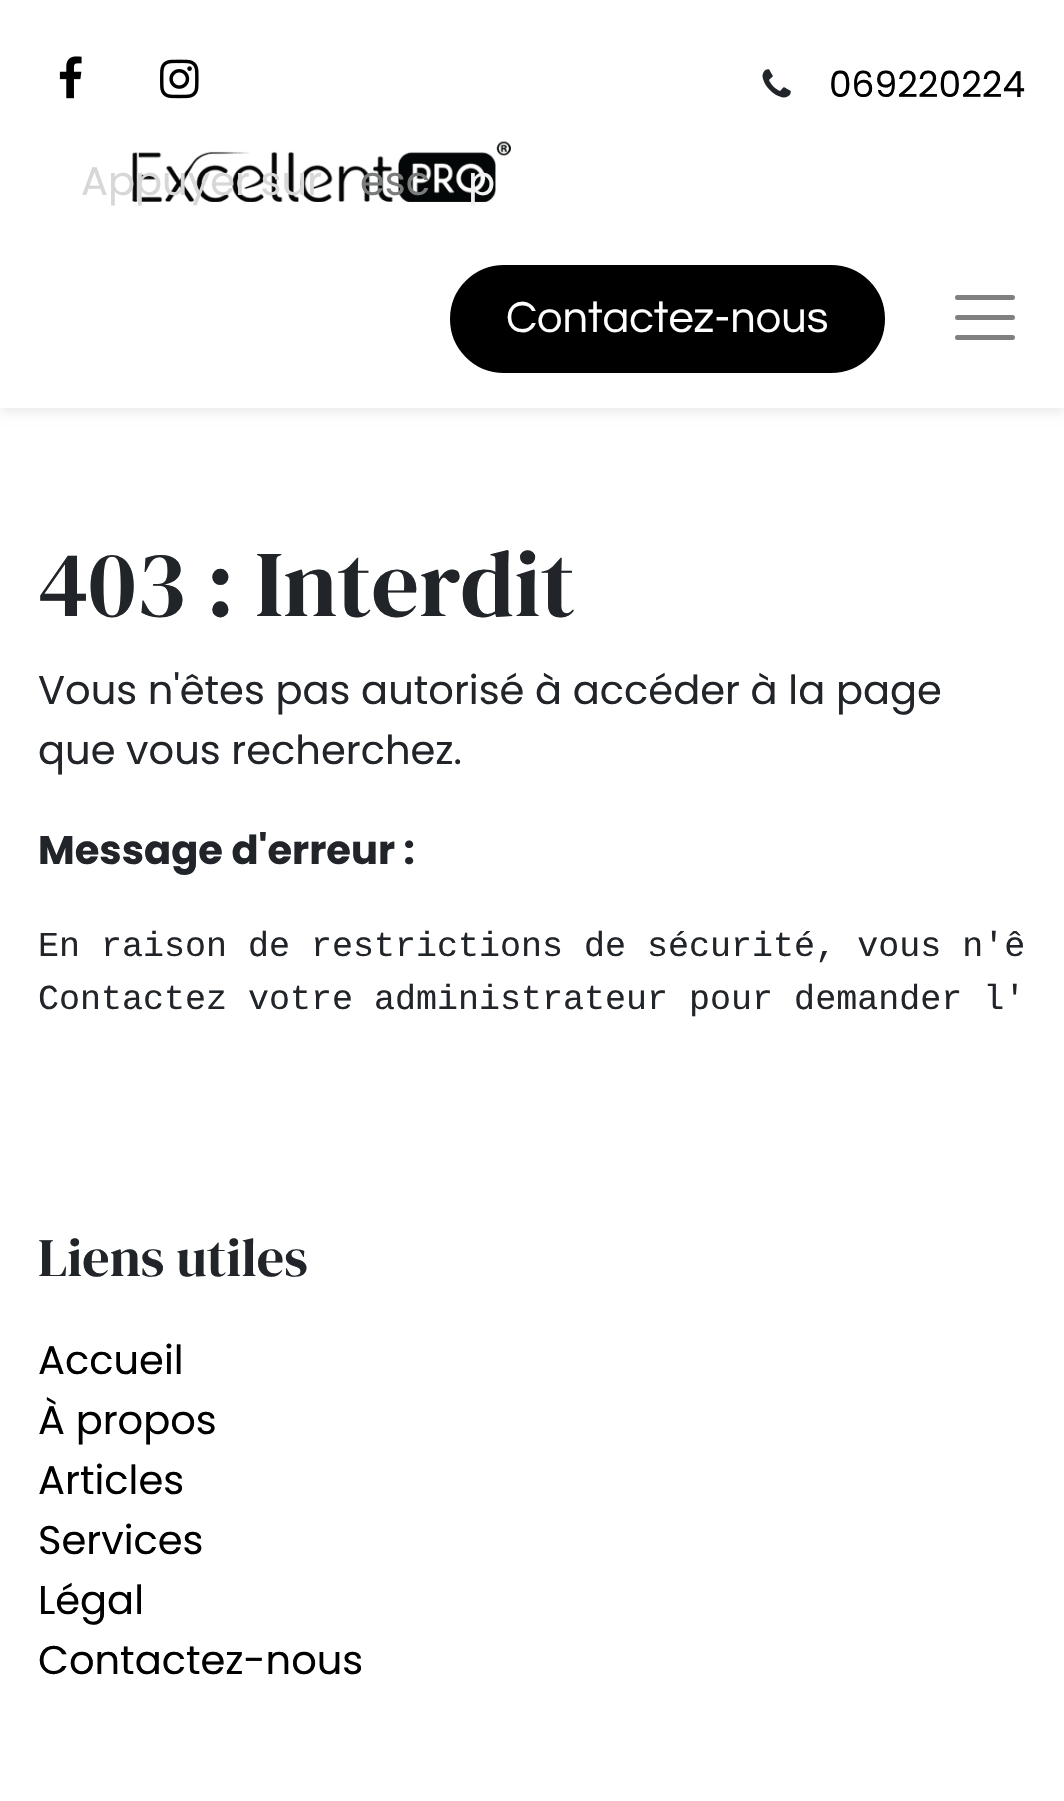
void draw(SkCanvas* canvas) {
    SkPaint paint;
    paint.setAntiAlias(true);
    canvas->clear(0xFFFFFFFF);
    paint.setColor(0x12000000);
    paint.setMaskFilter(SkMaskFilter::MakeBlur(kNormal_SkBlurStyle, 5));
    canvas->drawRect(SkRect::MakeXYWH(0, 5, 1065, 408), paint);
    paint.setMaskFilter(nullptr);
    paint.setColor(0xFFFFFFFF);
    canvas->drawRect(SkRect::MakeXYWH(0, 0, 1064, 408), paint);
    canvas->drawImageRect(SkImages::DeferredFromEncodedData(SkData::MakeFromFileName("img1.png")), SkRect::MakeXYWH(59, 56, 23, 43), SkSamplingOptions());
    canvas->drawImageRect(SkImages::DeferredFromEncodedData(SkData::MakeFromFileName("img2.png")), SkRect::MakeXYWH(160, 59, 39, 40), SkSamplingOptions());
    canvas->drawImageRect(SkImages::DeferredFromEncodedData(SkData::MakeFromFileName("img3.png")), SkRect::MakeXYWH(762, 69, 29, 29), SkSamplingOptions());
    SkFont font1(fontMgr->matchFamilyStyle("Poppins", SkFontStyle::Normal()), 36);
    font1.setSubpixel(true);
    paint.setColor(0xFF000000);
    canvas->drawString("069220224", 829, 97, font1, paint);
    canvas->drawImageRect(SkImages::DeferredFromEncodedData(SkData::MakeFromFileName("img4.png")), SkRect::MakeXYWH(132, 141, 379, 61), SkSamplingOptions());
    canvas->drawRoundRect(SkRect::MakeXYWH(451.5f, 266.5f, 432, 105), 52.5f, 52.5f, paint);
    paint.setStyle(SkPaint::kStroke_Style);
    paint.setStrokeWidth(3);
    canvas->drawRoundRect(SkRect::MakeXYWH(451.5f, 266.5f, 432, 105), 52.5f, 52.5f, paint);
    SkFont font2(fontMgr->matchFamilyStyle("Questrial", SkFontStyle::Normal()), 45);
    font2.setSubpixel(true);
    paint.setStyle(SkPaint::kFill_Style);
    paint.setColor(0xFFFFFFFF);
    canvas->drawString("Contactez-nous", 506, 332, font2, paint);
    paint.setStyle(SkPaint::kStroke_Style);
    paint.setStrokeWidth(5);
    paint.setStrokeCap(SkPaint::kRound_Cap);
    paint.setColor(0xFF808080);
    canvas->drawPath(SkPathBuilder().moveTo(957.5f, 297.5f).lineTo(1012.5f, 297.5f).moveTo(957.5f, 317.5f).lineTo(1012.5f, 317.5f).moveTo(957.5f, 337.5f).lineTo(1012.5f, 337.5f).detach(), paint);
    SkFont font3(fontMgr->matchFamilyStyle("DM Serif Display", SkFontStyle::Normal()), 94);
    font3.setSubpixel(true);
    paint.setStyle(SkPaint::kFill_Style);
    paint.setColor(0xFF212529);
    canvas->drawString("403 : Interdit", 38, 616, font3, paint);
    SkFont font4(fontMgr->matchFamilyStyle("Poppins", SkFontStyle::Normal()), 40);
    font4.setSubpixel(true);
    canvas->drawString("Vous n'êtes pas autorisé à accéder à la page", 38, 704, font4, paint);
    canvas->drawString("que vous recherchez.", 38, 764, font4, paint);
    SkFont font5(fontMgr->matchFamilyStyle("Poppins", SkFontStyle::Bold()), 40);
    font5.setSubpixel(true);
    canvas->drawString("Message d'erreur :", 38, 864, font5, paint);
    SkFont font6(fontMgr->matchFamilyStyle("Liberation Mono", SkFontStyle::Normal()), 35);
    font6.setSubpixel(true);
    canvas->drawString("En raison de restrictions de sécurité, vous n'ê", 38, 956, font6, paint);
    canvas->drawString("Contactez votre administrateur pour demander l'", 38, 1009, font6, paint);
    SkFont font7(fontMgr->matchFamilyStyle("DM Serif Display", SkFontStyle::Normal()), 54);
    font7.setSubpixel(true);
    canvas->drawString("Liens utiles", 38, 1276, font7, paint);
    paint.setColor(0xFF000000);
    canvas->drawString("Accueil", 38, 1374, font4, paint);
    canvas->drawString("À propos", 38, 1434, font4, paint);
    canvas->drawString("Articles", 38, 1494, font4, paint);
    canvas->drawString("Services", 38, 1554, font4, paint);
    canvas->drawString("Légal", 38, 1614, font4, paint);
    canvas->drawString("Contactez-nous", 38, 1674, font4, paint);
    paint.setColor(0xFFD7D7D7);
    canvas->drawString("Appuyer sur", 81, 195, font4, paint);
    paint.setColor(0xFF7B7C7C);
    canvas->drawString("esc", 360, 195, font4, paint);
    paint.setColor(0xFFF1F1F1);
    canvas->drawString("p", 468, 195, font4, paint);
}
